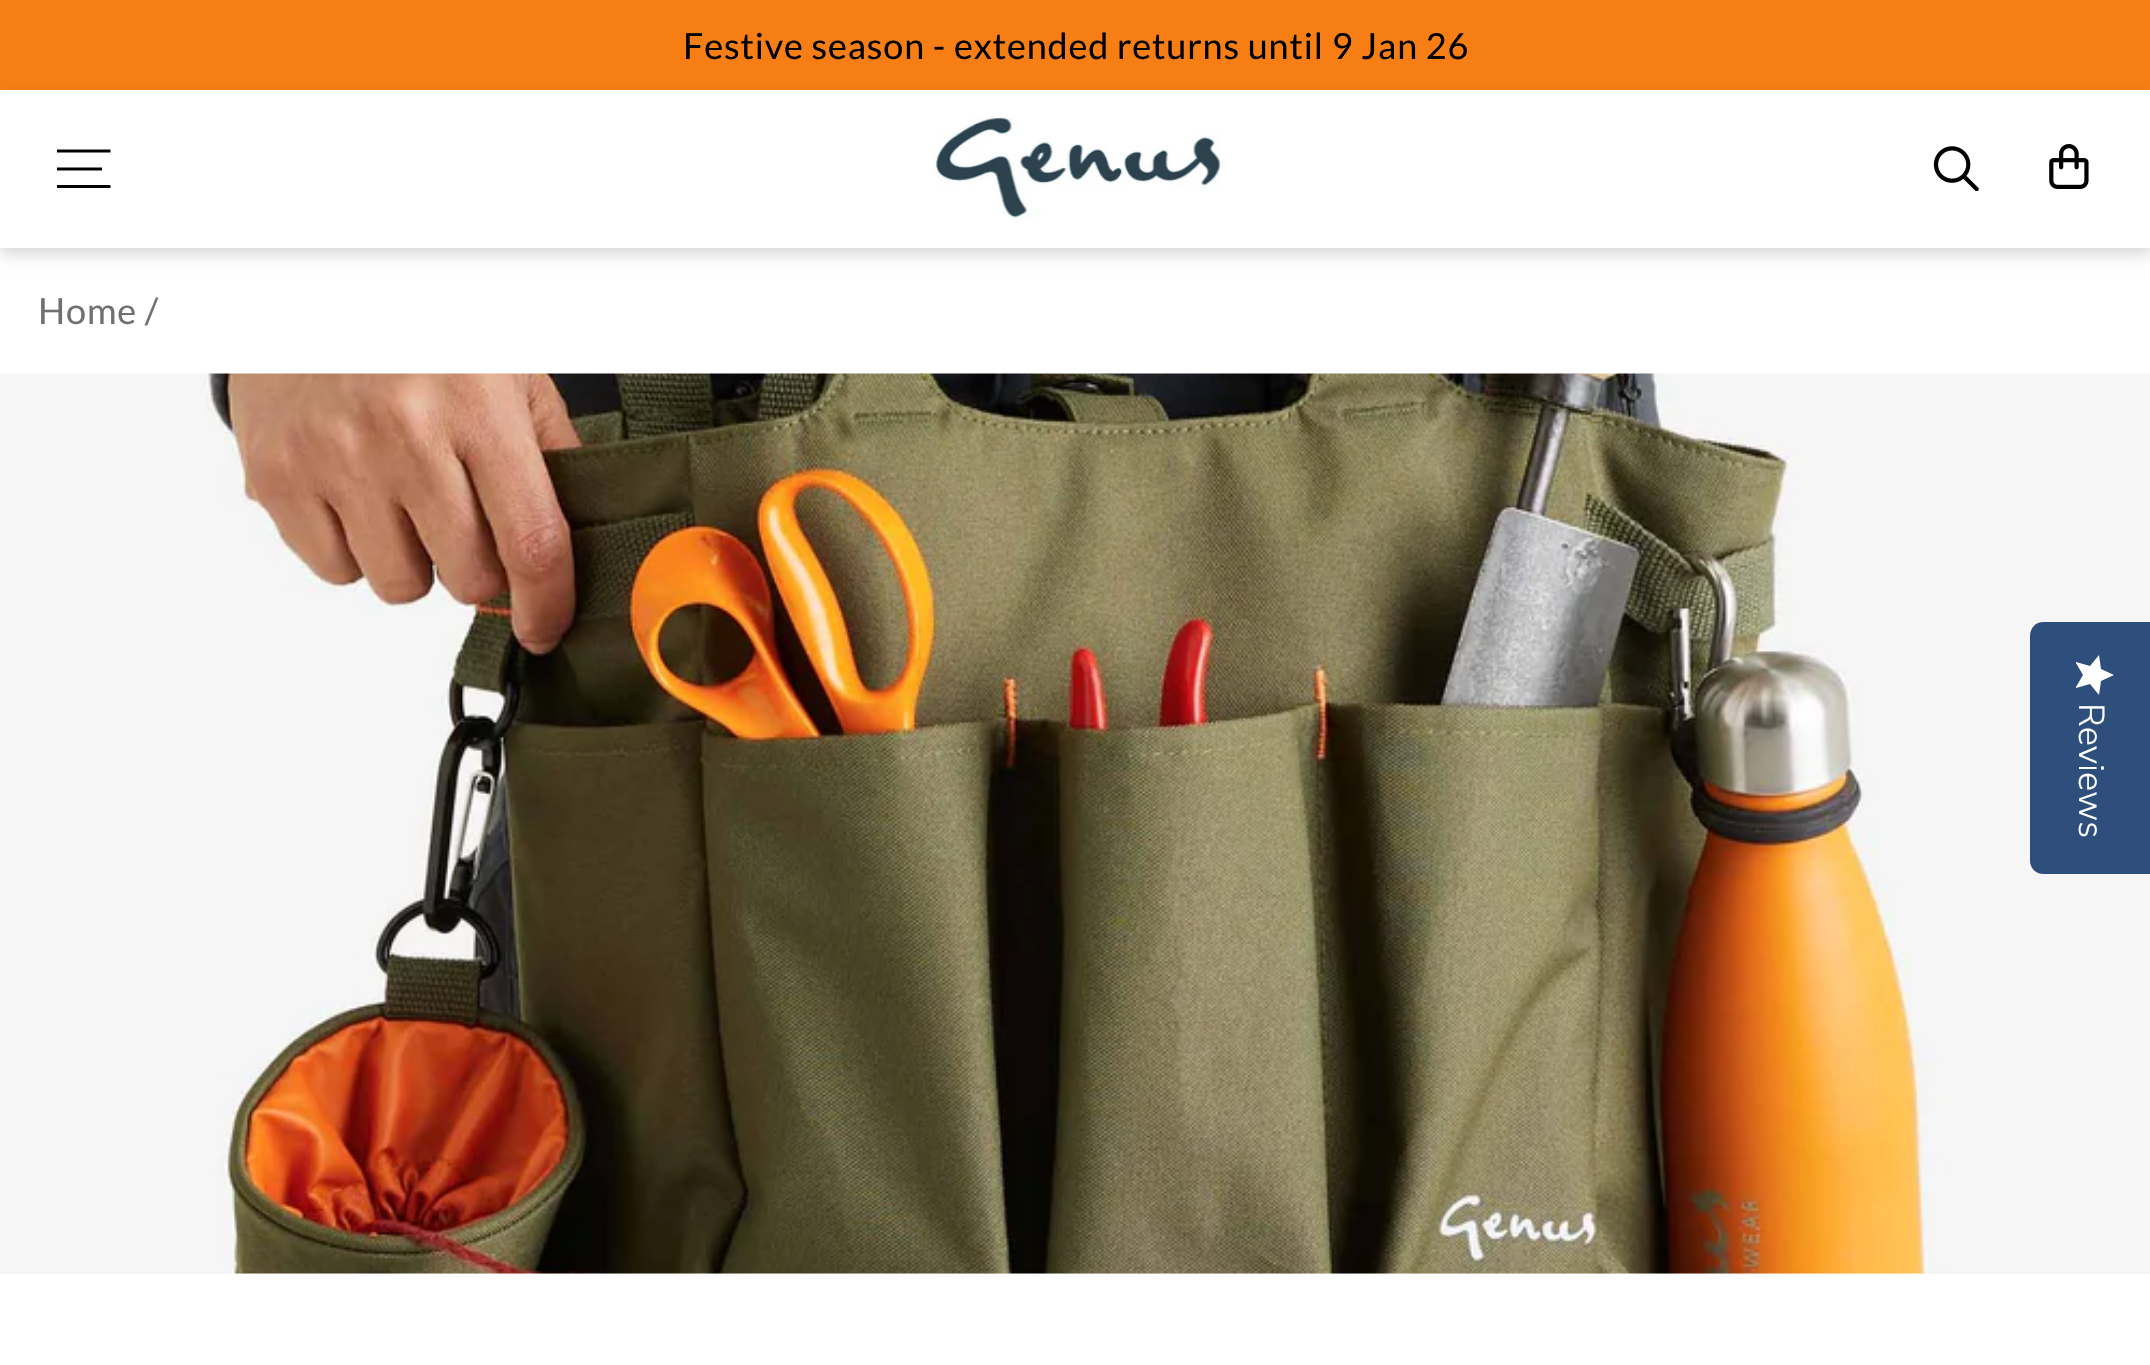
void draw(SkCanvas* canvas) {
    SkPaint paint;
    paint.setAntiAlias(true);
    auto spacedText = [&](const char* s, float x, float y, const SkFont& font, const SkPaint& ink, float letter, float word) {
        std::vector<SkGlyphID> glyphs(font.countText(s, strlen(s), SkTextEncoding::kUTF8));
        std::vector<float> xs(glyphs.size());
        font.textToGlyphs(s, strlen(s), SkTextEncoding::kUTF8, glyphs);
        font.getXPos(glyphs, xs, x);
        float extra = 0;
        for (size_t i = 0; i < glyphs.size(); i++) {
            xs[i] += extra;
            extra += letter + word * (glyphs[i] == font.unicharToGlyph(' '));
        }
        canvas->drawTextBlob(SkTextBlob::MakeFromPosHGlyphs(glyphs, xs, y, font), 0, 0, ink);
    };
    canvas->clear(0xFFFFFFFF);
    paint.setColor(0xFFF77E15);
    canvas->drawRect(SkRect::MakeXYWH(0, 0, 2150, 90), paint);
    SkFont font1(fontMgr->matchFamilyStyle("Lato", SkFontStyle::Normal()), 36);
    font1.setSubpixel(true);
    paint.setColor(0xFF000000);
    spacedText("Festive season - extended returns until 9 Jan 26", 683, 59, font1, paint, 0.85f, 0);
    paint.setColor(0x29000000);
    paint.setMaskFilter(SkMaskFilter::MakeBlur(kNormal_SkBlurStyle, 7));
    canvas->drawRect(SkRect::MakeXYWH(0, 97, 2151, 157), paint);
    paint.setMaskFilter(nullptr);
    paint.setColor(0xFFFFFFFF);
    canvas->drawRect(SkRect::MakeXYWH(0, 90, 2150, 158), paint);
    paint.setStyle(SkPaint::kStroke_Style);
    paint.setStrokeWidth(3.2f);
    paint.setColor(0xFF000000);
    canvas->drawPath(SkPathBuilder().moveTo(57, 151).lineTo(110.5f, 151).moveTo(57, 169).lineTo(102, 169).moveTo(57, 186.5f).lineTo(110.5f, 186.5f).detach(), paint);
    canvas->drawImageRect(SkImages::DeferredFromEncodedData(SkData::MakeFromFileName("img1.png")), SkRect::MakeXYWH(934, 117, 287, 102), SkSamplingOptions());
    canvas->drawImageRect(SkImages::DeferredFromEncodedData(SkData::MakeFromFileName("img2.png")), SkRect::MakeXYWH(1933, 146, 46, 45), SkSamplingOptions());
    canvas->drawImageRect(SkImages::DeferredFromEncodedData(SkData::MakeFromFileName("img3.png")), SkRect::MakeXYWH(2049, 144, 40, 45), SkSamplingOptions());
    paint.setStyle(SkPaint::kFill_Style);
    paint.setColor(0xFF707070);
    spacedText("Home /", 38, 324, font1, paint, 0.85f, 0);
    paint.setColor(0xFFF7F6F2);
    canvas->drawRect(SkRect::MakeXYWH(0, 1273, 2150, 1), paint);
    canvas->drawImageRect(SkImages::DeferredFromEncodedData(SkData::MakeFromFileName("img4.png")), SkRect::MakeXYWH(0, 373, 2150, 901), SkSamplingOptions());
    paint.setColor(0xFF2E4F7C);
    canvas->drawPath(SkPathBuilder().moveTo(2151, 622).lineTo(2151, 874).lineTo(2043, 874).cubicTo(2036, 874, 2030, 868, 2030, 861).lineTo(2030, 636).cubicTo(2030, 628, 2036, 622, 2043, 622).close().detach(), paint);
    {
        const SkColor colors[] = {0xFFFFFFFF, 0xFFEAEAEA};
        const float stops[] = {1, 1};
        const SkPoint ends[] = {{2114, 655}, {2114, 695}};
        paint.setShader(SkGradientShader::MakeLinear(ends, colors, stops, 2, SkTileMode::kClamp));
        paint.setAlpha(255);
    }
    canvas->drawPath(SkPathBuilder().moveTo(2083, 675).lineTo(2076, 663).lineTo(2076, 662).lineTo(2090, 666).lineTo(2099, 655).lineTo(2101, 669).lineTo(2114, 675).lineTo(2101, 681).lineTo(2099, 695).lineTo(2090, 684).lineTo(2076, 688).lineTo(2076, 687).close().detach(), paint);
    SkFont font2(fontMgr->matchFamilyStyle("Nunito Sans", SkFontStyle(300, SkFontStyle::kNormal_Width, SkFontStyle::kUpright_Slant)), 36);
    font2.setSubpixel(true);
    paint.setShader(nullptr);
    paint.setColor(0xFFFFFFFF);
    canvas->save();
    canvas->rotate(90, 2079, 703);
    canvas->drawString("Reviews", 2079, 703, font2, paint);
    canvas->restore();
}
